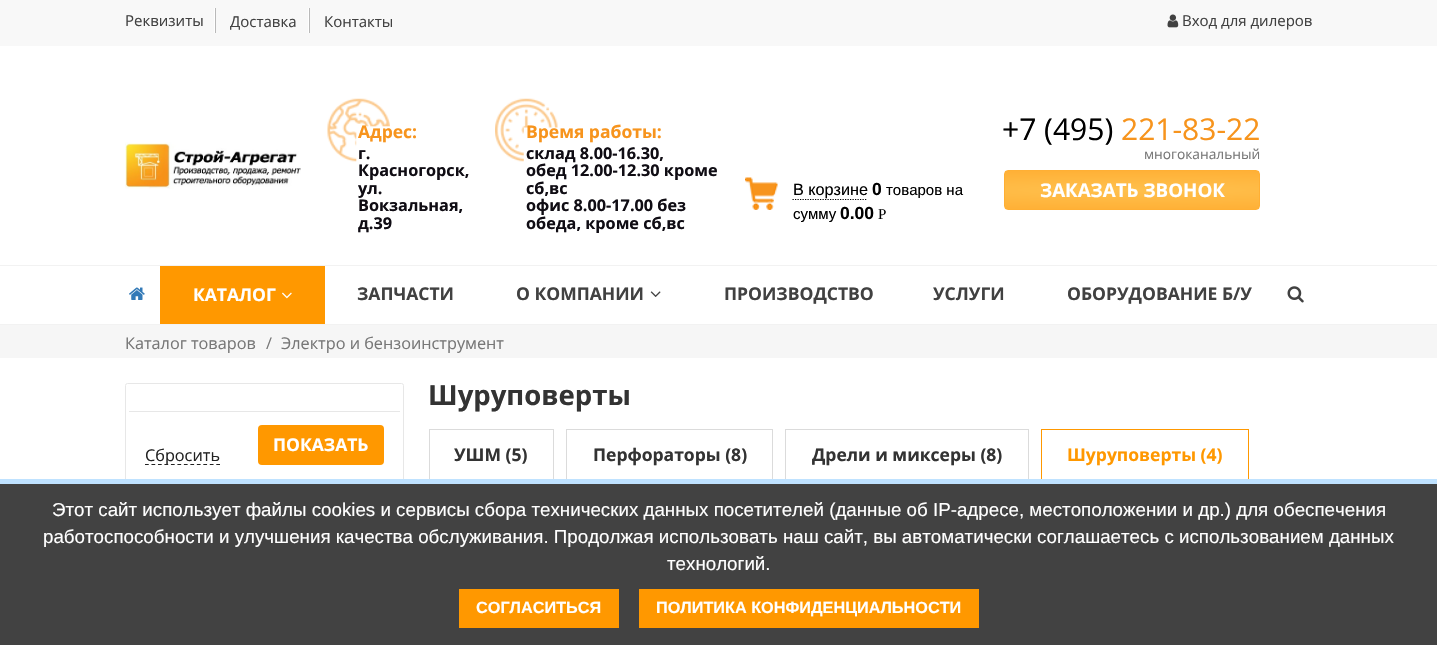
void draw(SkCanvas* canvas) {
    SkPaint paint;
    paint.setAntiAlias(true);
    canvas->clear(0xFFFFFFFF);
    paint.setColor(0xFFF8F8F8);
    canvas->drawRect(SkRect::MakeXYWH(0, 0, 1437, 46), paint);
    SkFont font1(fontMgr->matchFamilyStyle("Open Sans", SkFontStyle::Normal()), 15);
    font1.setSubpixel(true);
    paint.setColor(0xFF414141);
    canvas->drawString("Реквизиты", 125, 26, font1, paint);
    paint.setColor(0xFFB9B9B9);
    canvas->drawRect(SkRect::MakeXYWH(215, 8, 1, 25), paint);
    paint.setColor(0xFFFFFFFF);
    canvas->drawRect(SkRect::MakeXYWH(214, 8, 1, 25), paint);
    paint.setColor(0xFF414141);
    canvas->drawString("Доставка", 230, 27, font1, paint);
    paint.setColor(0xFFB9B9B9);
    canvas->drawRect(SkRect::MakeXYWH(309, 8, 1, 25), paint);
    paint.setColor(0xFFFFFFFF);
    canvas->drawRect(SkRect::MakeXYWH(308, 8, 1, 25), paint);
    paint.setColor(0xFF414141);
    canvas->drawString("Контакты", 324, 27, font1, paint);
    canvas->drawImageRect(SkImages::DeferredFromEncodedData(SkData::MakeFromFileName("img1.png")), SkRect::MakeXYWH(1167, 14, 12, 14), SkSamplingOptions());
    canvas->drawString("Вход для дилеров", 1182, 26, font1, paint);
    canvas->drawImageRect(SkImages::DeferredFromEncodedData(SkData::MakeFromFileName("img2.png")), SkRect::MakeXYWH(125, 142, 176, 47), SkSamplingOptions());
    canvas->drawImageRect(SkImages::DeferredFromEncodedData(SkData::MakeFromFileName("img3.png")), SkRect::MakeXYWH(327, 98, 63, 64), SkSamplingOptions());
    SkFont font2(fontMgr->matchFamilyStyle("Open Sans", SkFontStyle::Bold()), 17.5f);
    font2.setSubpixel(true);
    paint.setColor(0xFFF7941D);
    canvas->drawString("Адрес:", 358, 138, font2, paint);
    SkFont font3(fontMgr->matchFamilyStyle("Open Sans", SkFontStyle::Bold()), 16.25f);
    font3.setSubpixel(true);
    paint.setColor(0xFF100D14);
    canvas->drawString("г.", 358, 159, font3, paint);
    canvas->drawString("Красногорск,", 358, 176, font3, paint);
    canvas->drawString("ул.", 358, 194, font3, paint);
    canvas->drawString("Вокзальная,", 358, 211, font3, paint);
    canvas->drawString("д.39", 358, 229, font3, paint);
    canvas->drawImageRect(SkImages::DeferredFromEncodedData(SkData::MakeFromFileName("img4.png")), SkRect::MakeXYWH(495, 98, 63, 64), SkSamplingOptions());
    paint.setColor(0xFFF7941D);
    canvas->drawString("Время работы:", 526, 138, font2, paint);
    paint.setColor(0xFF100D14);
    canvas->drawString("склад 8.00-16.30,", 526, 159, font3, paint);
    canvas->drawString("обед 12.00-12.30 кроме", 526, 176, font3, paint);
    canvas->drawString("сб,вс", 526, 194, font3, paint);
    canvas->drawString("офис 8.00-17.00 без", 526, 211, font3, paint);
    canvas->drawString("обеда, кроме сб,вс", 526, 229, font3, paint);
    canvas->drawImageRect(SkImages::DeferredFromEncodedData(SkData::MakeFromFileName("img5.png")), SkRect::MakeXYWH(745, 177, 33, 33), SkSamplingOptions());
    paint.setStyle(SkPaint::kStroke_Style);
    paint.setStrokeWidth(1.2f);
    paint.setColor(0xFF000000);
    paint.setPathEffect(SkDashPathEffect::Make({{1.25f, 1.25f}}, 0));
    canvas->drawPath(SkPathBuilder().moveTo(792.5f, 199.5f).lineTo(867.5f, 199.5f).detach(), paint);
    paint.setPathEffect(nullptr);
    SkFont font4(fontMgr->matchFamilyStyle("Liberation Sans", SkFontStyle::Normal()), 16.25f);
    font4.setSubpixel(true);
    paint.setStyle(SkPaint::kFill_Style);
    canvas->drawString("В корзине", 793, 195, font4, paint);
    SkFont font5(fontMgr->matchFamilyStyle("Liberation Sans", SkFontStyle::Bold()), 17.5f);
    font5.setSubpixel(true);
    canvas->drawString("0", 872, 195, font5, paint);
    SkFont font6(fontMgr->matchFamilyStyle("Liberation Sans", SkFontStyle::Normal()), 15);
    font6.setSubpixel(true);
    canvas->drawString("товаров на", 886, 195, font6, paint);
    canvas->drawString("сумму", 793, 219, font6, paint);
    canvas->drawString("0.00", 840, 219, font5, paint);
    SkFont font7(fontMgr->matchFamilyStyle("Liberation Serif", SkFontStyle::Normal()), 15);
    font7.setSubpixel(true);
    canvas->drawString("Р", 878, 219, font7, paint);
    SkFont font8(fontMgr->matchFamilyStyle("Open Sans", SkFontStyle::Normal()), 30);
    font8.setSubpixel(true);
    canvas->drawString("+7 (495)", 1002, 140, font8, paint);
    paint.setColor(0xFFF7941D);
    canvas->drawString("221-83-22", 1121, 140, font8, paint);
    SkFont font9(fontMgr->matchFamilyStyle("Open Sans", SkFontStyle::Normal()), 13.75f);
    font9.setSubpixel(true);
    paint.setColor(0xFF777777);
    canvas->drawString("многоканальный", 1144, 159, font9, paint);
    canvas->save();
    canvas->clipPath(SkPathBuilder().moveTo(1008, 170).lineTo(1256, 170).cubicTo(1258, 170, 1260, 172, 1260, 174).lineTo(1260, 206).cubicTo(1260, 208, 1258, 210, 1256, 210).lineTo(1008, 210).cubicTo(1006, 210, 1004, 208, 1004, 206).lineTo(1004, 174).cubicTo(1004, 172, 1006, 170, 1008, 170).close().detach(), true);
    {
        const SkColor colors[] = {0xFFFFC04D, 0xFFFFB137};
        const float stops[] = {0, 1};
        SkMatrix m = SkMatrix::Translate(1132, 190).preScale(381, 19);
        paint.setShader(SkGradientShader::MakeRadial({0, 0}, 1, colors, stops, 2, SkTileMode::kClamp, 0, &m));
        paint.setAlpha(255);
    }
    canvas->drawRect(SkRect::MakeXYWH(1005, 171, 254, 38), paint);
    canvas->restore();
    paint.setStyle(SkPaint::kStroke_Style);
    paint.setStrokeWidth(1);
    paint.setShader(nullptr);
    paint.setColor(0xFFFFAF34);
    canvas->drawRoundRect(SkRect::MakeXYWH(1004.5f, 170.5f, 255, 39), 3.5f, 3.5f, paint);
    SkFont font10(fontMgr->matchFamilyStyle("Open Sans", SkFontStyle::Bold()), 18.75f);
    font10.setSubpixel(true);
    paint.setStyle(SkPaint::kFill_Style);
    paint.setColor(0xFFFFFFFF);
    canvas->drawString("ЗАКАЗАТЬ ЗВОНОК", 1040, 197, font10, paint);
    paint.setColor(0xFFF2F2F2);
    canvas->drawRect(SkRect::MakeXYWH(0, 265, 1437, 1), paint);
    canvas->drawRect(SkRect::MakeXYWH(0, 324, 1437, 1), paint);
    canvas->drawImageRect(SkImages::DeferredFromEncodedData(SkData::MakeFromFileName("img6.png")), SkRect::MakeXYWH(129, 287, 16, 13), SkSamplingOptions());
    paint.setColor(0xFFFF9800);
    canvas->drawRect(SkRect::MakeXYWH(160, 266, 165, 58), paint);
    paint.setColor(0xFFFFFFFF);
    canvas->drawString("КАТАЛОГ", 193, 301, font2, paint);
    canvas->drawImageRect(SkImages::DeferredFromEncodedData(SkData::MakeFromFileName("img7.png")), SkRect::MakeXYWH(282, 292, 10, 7), SkSamplingOptions());
    paint.setColor(0xFF414141);
    canvas->drawString("ЗАПЧАСТИ", 357, 300, font2, paint);
    canvas->drawString("О КОМПАНИИ", 516, 300, font2, paint);
    canvas->drawImageRect(SkImages::DeferredFromEncodedData(SkData::MakeFromFileName("img8.png")), SkRect::MakeXYWH(650, 291, 11, 6), SkSamplingOptions());
    canvas->drawString("ПРОИЗВОДСТВО", 724, 300, font2, paint);
    canvas->drawString("УСЛУГИ", 933, 300, font2, paint);
    canvas->drawString("ОБОРУДОВАНИЕ Б/У", 1067, 300, font2, paint);
    canvas->drawImageRect(SkImages::DeferredFromEncodedData(SkData::MakeFromFileName("img9.png")), SkRect::MakeXYWH(1287, 286, 17, 17), SkSamplingOptions());
    paint.setColor(0xFFF6F6F6);
    canvas->drawRect(SkRect::MakeXYWH(0, 325, 1437, 33), paint);
    SkFont font11(fontMgr->matchFamilyStyle("Open Sans", SkFontStyle::Normal()), 16.25f);
    font11.setSubpixel(true);
    paint.setColor(0xFF777777);
    canvas->drawString("Каталог товаров", 125, 349, font11, paint);
    canvas->drawString("/", 266, 349, font11, paint);
    canvas->drawString("Электро и бензоинструмент", 281, 349, font11, paint);
    paint.setStyle(SkPaint::kStroke_Style);
    paint.setColor(0xFFE7E7E7);
    canvas->drawRoundRect(SkRect::MakeXYWH(125.5f, 383.5f, 278, 120), 2, 2, paint);
    paint.setStyle(SkPaint::kFill_Style);
    canvas->drawRect(SkRect::MakeXYWH(129, 411, 271, 1), paint);
    paint.setColor(0xFFFF9800);
    canvas->drawRoundRect(SkRect::MakeXYWH(258, 425, 126, 40), 4, 4, paint);
    paint.setColor(0xFFFFFFFF);
    canvas->drawString("ПОКАЗАТЬ", 273, 451, font2, paint);
    paint.setStyle(SkPaint::kStroke_Style);
    paint.setStrokeWidth(1.2f);
    paint.setColor(0xFF222222);
    paint.setPathEffect(SkDashPathEffect::Make({{3.75f, 2.73f}}, 0));
    canvas->drawPath(SkPathBuilder().moveTo(145, 464.5f).lineTo(220, 464.5f).detach(), paint);
    paint.setPathEffect(nullptr);
    paint.setStyle(SkPaint::kFill_Style);
    canvas->drawString("Сбросить", 145, 461, font11, paint);
    SkFont font12(fontMgr->matchFamilyStyle("Open Sans", SkFontStyle::Bold()), 27.5f);
    font12.setSubpixel(true);
    paint.setColor(0xFF333333);
    canvas->drawString("Шуруповерты", 428, 405, font12, paint);
    paint.setStyle(SkPaint::kStroke_Style);
    paint.setStrokeWidth(1);
    paint.setColor(0xFFDBDBDB);
    canvas->drawRect(SkRect::MakeXYWH(429.5f, 429.5f, 124, 51), paint);
    paint.setStyle(SkPaint::kFill_Style);
    paint.setColor(0xFF333333);
    canvas->drawString("УШМ (5)", 454, 461, font2, paint);
    paint.setStyle(SkPaint::kStroke_Style);
    paint.setColor(0xFFDBDBDB);
    canvas->drawRect(SkRect::MakeXYWH(566.5f, 429.5f, 206, 51), paint);
    paint.setStyle(SkPaint::kFill_Style);
    paint.setColor(0xFF333333);
    canvas->drawString("Перфораторы (8)", 593, 461, font2, paint);
    paint.setStyle(SkPaint::kStroke_Style);
    paint.setColor(0xFFDBDBDB);
    canvas->drawRect(SkRect::MakeXYWH(785.5f, 429.5f, 243, 51), paint);
    paint.setStyle(SkPaint::kFill_Style);
    paint.setColor(0xFF333333);
    canvas->drawString("Дрели и миксеры (8)", 812, 461, font2, paint);
    paint.setStyle(SkPaint::kStroke_Style);
    paint.setColor(0xFFFF9800);
    canvas->drawRect(SkRect::MakeXYWH(1041.5f, 429.5f, 207, 51), paint);
    paint.setStyle(SkPaint::kFill_Style);
    canvas->drawString("Шуруповерты (4)", 1067, 461, font2, paint);
    paint.setColor(0xFF424242);
    canvas->drawRect(SkRect::MakeXYWH(0, 484, 1437, 161), paint);
    paint.setColor(0xFFBFE2FF);
    canvas->drawRect(SkRect::MakeXYWH(0, 479, 1437, 5), paint);
    SkFont font13(fontMgr->matchFamilyStyle("Liberation Sans", SkFontStyle::Normal()), 18.75f);
    font13.setSubpixel(true);
    paint.setColor(0xFFFFFFFF);
    canvas->drawString("Этот сайт использует файлы cookies и сервисы сбора технических данных посетителей (данные об IP-адресе, местоположении и др.) для обеспечения", 52, 516, font13, paint);
    canvas->drawString("работоспособности и улучшения качества обслуживания. Продолжая использовать наш сайт, вы автоматически соглашаетесь с использованием данных", 43, 543, font13, paint);
    canvas->drawString("технологий.", 667, 570, font13, paint);
    paint.setColor(0xFFFF9800);
    canvas->drawRect(SkRect::MakeXYWH(459, 589, 160, 39), paint);
    SkFont font14(fontMgr->matchFamilyStyle("Liberation Sans", SkFontStyle::Bold()), 16.25f);
    font14.setSubpixel(true);
    paint.setColor(0xFFFFFFFF);
    canvas->drawString("СОГЛАСИТЬСЯ", 476, 613, font14, paint);
    paint.setColor(0xFFFF9800);
    canvas->drawRect(SkRect::MakeXYWH(639, 589, 340, 39), paint);
    paint.setColor(0xFFFFFFFF);
    canvas->drawString("ПОЛИТИКА КОНФИДЕНЦИАЛЬНОСТИ", 656, 613, font14, paint);
}
